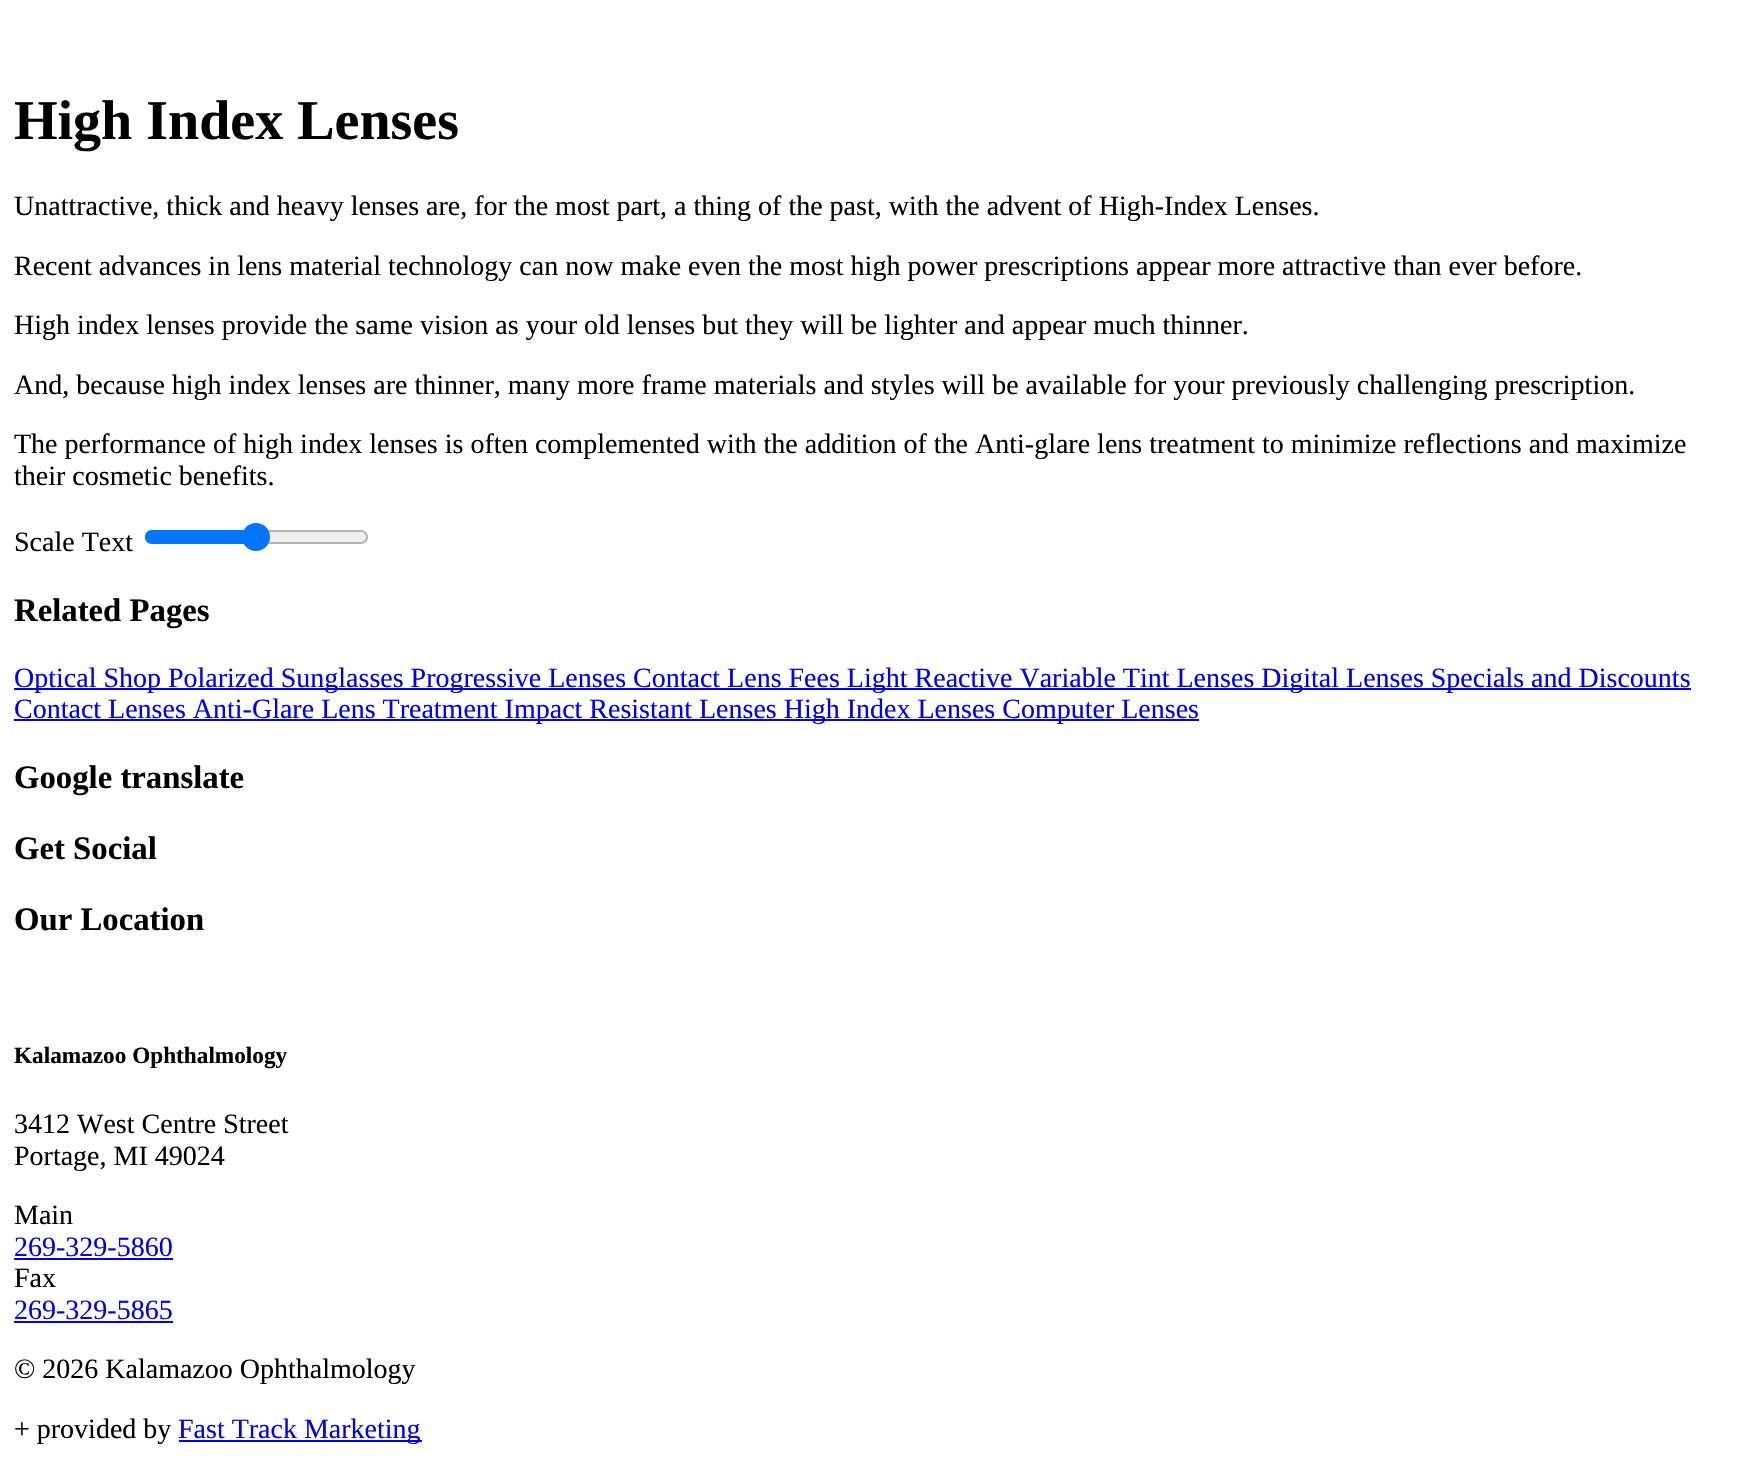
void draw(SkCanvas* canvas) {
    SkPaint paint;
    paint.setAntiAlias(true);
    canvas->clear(0xFFFFFFFF);
    SkFont font1(fontMgr->matchFamilyStyle("Liberation Serif", SkFontStyle::Bold()), 56);
    font1.setSubpixel(true);
    paint.setColor(0xFF000000);
    canvas->drawString("High Index Lenses", 14, 139, font1, paint);
    SkFont font2(fontMgr->matchFamilyStyle("Liberation Serif", SkFontStyle::Normal()), 28);
    font2.setSubpixel(true);
    canvas->drawString("Unattractive, thick and heavy lenses are, for the most part, a thing of the past, with the advent of High-Index Lenses.", 14, 215, font2, paint);
    canvas->drawString("Recent advances in lens material technology can now make even the most high power prescriptions appear more attractive than ever before.", 14, 275, font2, paint);
    canvas->drawString("High index lenses provide the same vision as your old lenses but they will be lighter and appear much thinner.", 14, 334, font2, paint);
    canvas->drawString("And, because high index lenses are thinner, many more frame materials and styles will be available for your previously challenging prescription.", 14, 394, font2, paint);
    canvas->drawString("The performance of high index lenses is often complemented with the addition of the Anti-glare lens treatment to minimize reflections and maximize", 14, 453, font2, paint);
    canvas->drawString("their cosmetic benefits.", 14, 485, font2, paint);
    canvas->drawString("Scale Text", 14, 551, font2, paint);
    paint.setColor(0xFFEFEFEF);
    canvas->drawRoundRect(SkRect::MakeXYWH(146, 531, 221, 12), 6, 6, paint);
    paint.setStyle(SkPaint::kStroke_Style);
    paint.setStrokeWidth(2);
    paint.setColor(0xFFB2B2B2);
    canvas->drawRoundRect(SkRect::MakeXYWH(146, 531, 221, 12), 6, 6, paint);
    paint.setStyle(SkPaint::kFill_Style);
    paint.setColor(0xFF0075FF);
    canvas->drawPath(SkPathBuilder().moveTo(152, 530).lineTo(256, 530).lineTo(256, 544).lineTo(152, 544).cubicTo(148, 544, 145, 541, 145, 537).cubicTo(145, 533, 148, 530, 152, 530).close().detach(), paint);
    canvas->drawCircle(256, 537, 14, paint);
    SkFont font3(fontMgr->matchFamilyStyle("Liberation Serif", SkFontStyle::Bold()), 32.75f);
    font3.setSubpixel(true);
    paint.setColor(0xFF000000);
    canvas->drawString("Related Pages", 14, 621, font3, paint);
    paint.setColor(0xFF0000EE);
    canvas->drawRect(SkRect::MakeXYWH(14, 688, 1677, 2), paint);
    canvas->drawString("Optical Shop Polarized Sunglasses Progressive Lenses Contact Lens Fees Light Reactive Variable Tint Lenses Digital Lenses Specials and Discounts", 14, 687, font2, paint);
    canvas->drawRect(SkRect::MakeXYWH(14, 719, 1185, 2), paint);
    canvas->drawString("Contact Lenses Anti-Glare Lens Treatment Impact Resistant Lenses High Index Lenses Computer Lenses", 14, 718, font2, paint);
    paint.setColor(0xFF000000);
    canvas->drawString("Google translate", 14, 788, font3, paint);
    canvas->drawString("Get Social", 14, 859, font3, paint);
    canvas->drawString("Our Location", 14, 930, font3, paint);
    SkFont font4(fontMgr->matchFamilyStyle("Liberation Serif", SkFontStyle::Bold()), 23.25f);
    font4.setSubpixel(true);
    canvas->drawString("Kalamazoo Ophthalmology", 14, 1063, font4, paint);
    canvas->drawString("3412 West Centre Street", 14, 1133, font2, paint);
    canvas->drawString("Portage, MI 49024", 14, 1165, font2, paint);
    canvas->drawString("Main", 14, 1224, font2, paint);
    paint.setColor(0xFF0000EE);
    canvas->drawString("269-329-5860", 14, 1256, font2, paint);
    canvas->drawRect(SkRect::MakeXYWH(14, 1258, 159, 2), paint);
    paint.setColor(0xFF000000);
    canvas->drawString("Fax", 14, 1287, font2, paint);
    paint.setColor(0xFF0000EE);
    canvas->drawString("269-329-5865", 14, 1319, font2, paint);
    canvas->drawRect(SkRect::MakeXYWH(14, 1321, 159, 2), paint);
    paint.setColor(0xFF000000);
    canvas->drawString("© 2026 Kalamazoo Ophthalmology", 14, 1378, font2, paint);
    canvas->drawString("+ provided by", 14, 1438, font2, paint);
    paint.setColor(0xFF0000EE);
    canvas->drawRect(SkRect::MakeXYWH(179, 1440, 243, 2), paint);
    canvas->drawString("Fast Track Marketing", 178, 1438, font2, paint);
}
